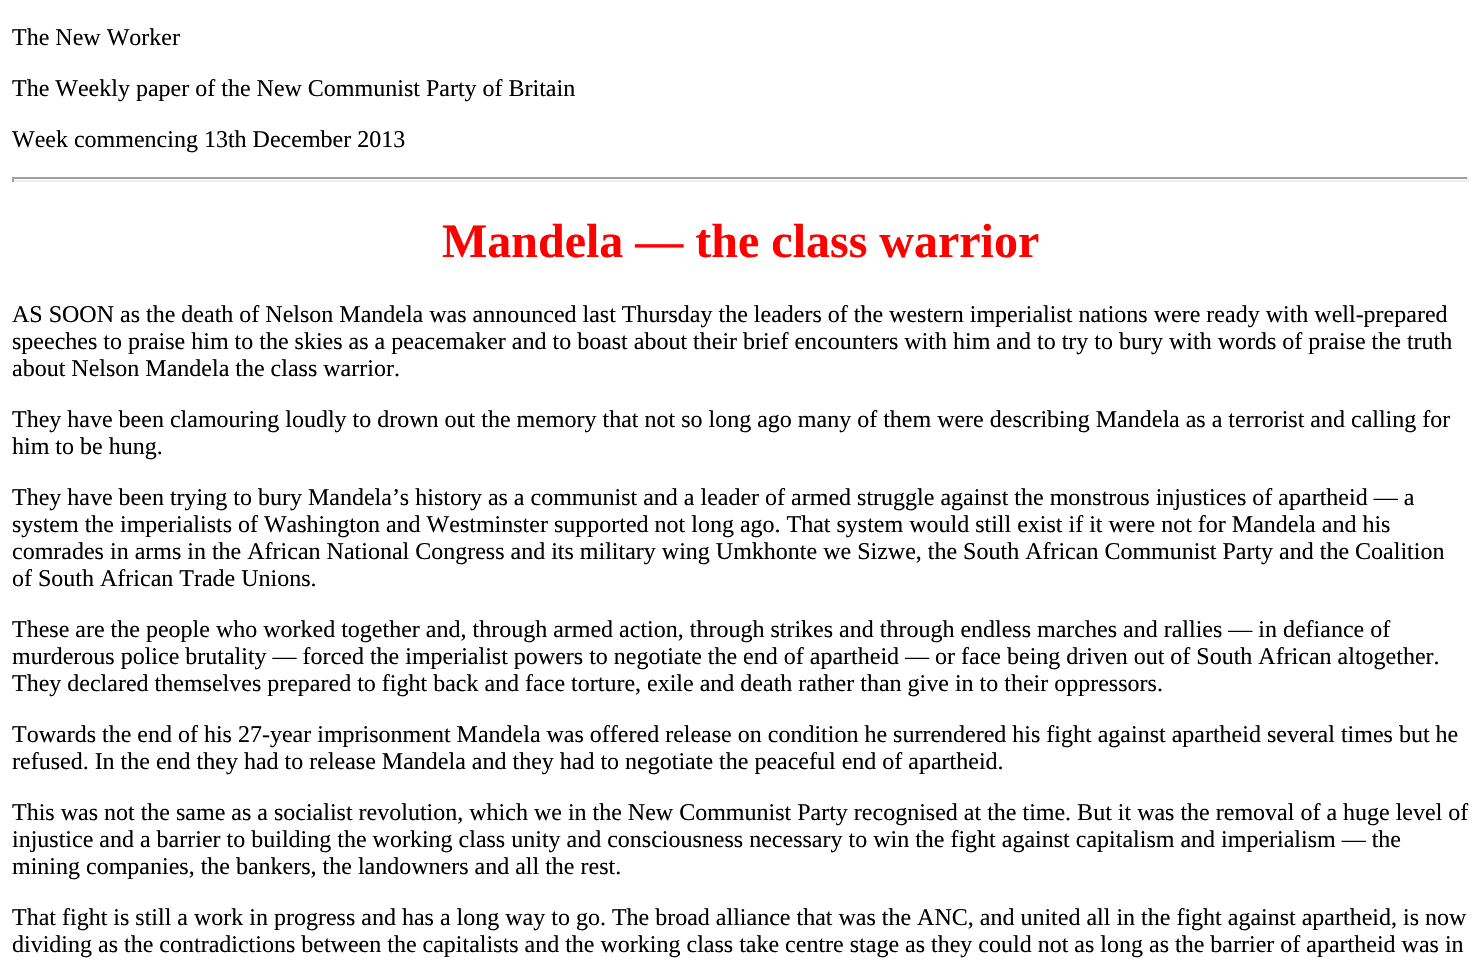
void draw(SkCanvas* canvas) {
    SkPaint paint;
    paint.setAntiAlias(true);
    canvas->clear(0xFFFFFFFF);
    SkFont font1(fontMgr->matchFamilyStyle("Liberation Serif", SkFontStyle::Normal()), 24);
    font1.setSubpixel(true);
    paint.setColor(0xFF000000);
    canvas->drawString("The New Worker", 12, 45, font1, paint);
    canvas->drawString("The Weekly paper of the New Communist Party of Britain", 12, 96, font1, paint);
    canvas->drawString("Week commencing 13th December 2013", 12, 147, font1, paint);
    paint.setColor(0xFF9F9F9F);
    canvas->drawRect(SkRect::MakeXYWH(12, 177, 1457, 2), paint);
    paint.setColor(0xFFEEEEEE);
    canvas->drawRect(SkRect::MakeXYWH(1467, 177, 2, 5), paint);
    canvas->drawRect(SkRect::MakeXYWH(12, 180, 1457, 2), paint);
    paint.setColor(0xFF9F9F9F);
    canvas->drawRect(SkRect::MakeXYWH(12, 177, 2, 5), paint);
    SkFont font2(fontMgr->matchFamilyStyle("Liberation Serif", SkFontStyle::Bold()), 48);
    font2.setSubpixel(true);
    paint.setColor(0xFFFF0000);
    canvas->drawString("Mandela — the class warrior", 442, 257, font2, paint);
    paint.setColor(0xFF000000);
    canvas->drawString("AS SOON as the death of Nelson Mandela was announced last Thursday the leaders of the western imperialist nations were ready with well-prepared", 12, 322, font1, paint);
    canvas->drawString("speeches to praise him to the skies as a peacemaker and to boast about their brief encounters with him and to try to bury with words of praise the truth", 12, 349, font1, paint);
    canvas->drawString("about Nelson Mandela the class warrior.", 12, 376, font1, paint);
    canvas->drawString("They have been clamouring loudly to drown out the memory that not so long ago many of them were describing Mandela as a terrorist and calling for", 12, 427, font1, paint);
    canvas->drawString("him to be hung.", 12, 454, font1, paint);
    canvas->drawString("They have been trying to bury Mandela’s history as a communist and a leader of armed struggle against the monstrous injustices of apartheid — a", 12, 505, font1, paint);
    canvas->drawString("system the imperialists of Washington and Westminster supported not long ago. That system would still exist if it were not for Mandela and his", 12, 532, font1, paint);
    canvas->drawString("comrades in arms in the African National Congress and its military wing Umkhonte we Sizwe, the South African Communist Party and the Coalition", 12, 559, font1, paint);
    canvas->drawString("of South African Trade Unions.", 12, 586, font1, paint);
    canvas->drawString("These are the people who worked together and, through armed action, through strikes and through endless marches and rallies — in defiance of", 12, 637, font1, paint);
    canvas->drawString("murderous police brutality — forced the imperialist powers to negotiate the end of apartheid — or face being driven out of South African altogether.", 12, 664, font1, paint);
    canvas->drawString("They declared themselves prepared to fight back and face torture, exile and death rather than give in to their oppressors.", 12, 691, font1, paint);
    canvas->drawString("Towards the end of his 27-year imprisonment Mandela was offered release on condition he surrendered his fight against apartheid several times but he", 12, 742, font1, paint);
    canvas->drawString("refused. In the end they had to release Mandela and they had to negotiate the peaceful end of apartheid.", 12, 769, font1, paint);
    canvas->drawString("This was not the same as a socialist revolution, which we in the New Communist Party recognised at the time. But it was the removal of a huge level of", 12, 820, font1, paint);
    canvas->drawString("injustice and a barrier to building the working class unity and consciousness necessary to win the fight against capitalism and imperialism — the", 12, 847, font1, paint);
    canvas->drawString("mining companies, the bankers, the landowners and all the rest.", 12, 874, font1, paint);
    canvas->drawString("That fight is still a work in progress and has a long way to go. The broad alliance that was the ANC, and united all in the fight against apartheid, is now", 12, 925, font1, paint);
    canvas->drawString("dividing as the contradictions between the capitalists and the working class take centre stage as they could not as long as the barrier of apartheid was in", 12, 952, font1, paint);
}
